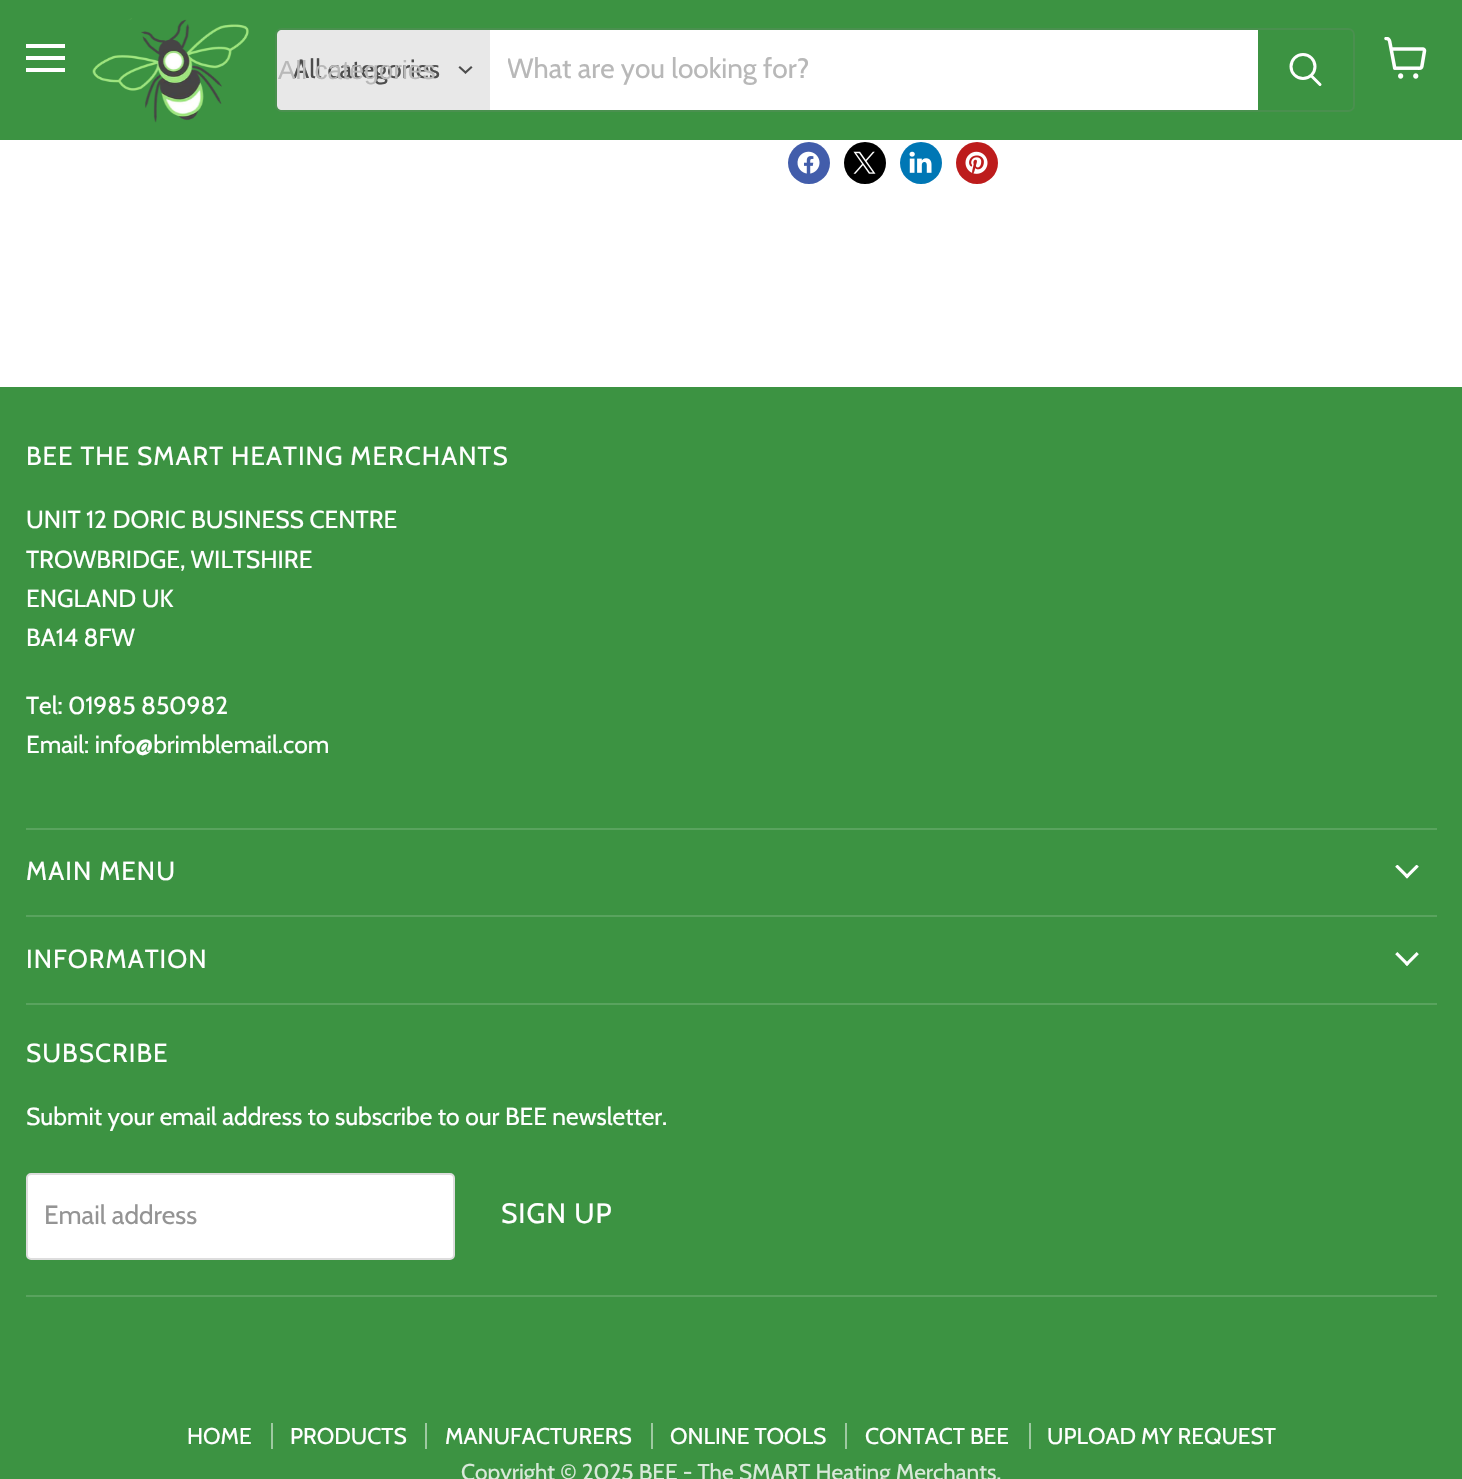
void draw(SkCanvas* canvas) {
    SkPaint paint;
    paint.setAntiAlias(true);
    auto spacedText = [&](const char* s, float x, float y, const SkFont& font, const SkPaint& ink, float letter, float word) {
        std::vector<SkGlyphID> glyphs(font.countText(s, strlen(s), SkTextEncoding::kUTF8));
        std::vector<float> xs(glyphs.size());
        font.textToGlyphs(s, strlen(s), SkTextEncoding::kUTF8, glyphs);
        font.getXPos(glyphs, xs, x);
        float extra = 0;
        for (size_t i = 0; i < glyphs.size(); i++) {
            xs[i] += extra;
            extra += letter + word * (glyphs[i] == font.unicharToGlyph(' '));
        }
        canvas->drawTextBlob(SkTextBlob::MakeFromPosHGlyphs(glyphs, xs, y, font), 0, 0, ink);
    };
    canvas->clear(0xFFFFFFFF);
    paint.setColor(0xFF3C9342);
    canvas->drawRect(SkRect::MakeXYWH(0, 0, 1462, 140), paint);
    paint.setColor(0xFFFFFFFF);
    canvas->drawRect(SkRect::MakeXYWH(26, 44, 39, 4), paint);
    canvas->drawRect(SkRect::MakeXYWH(26, 56, 39, 4), paint);
    canvas->drawRect(SkRect::MakeXYWH(26, 68, 39, 4), paint);
    canvas->drawImageRect(SkImages::DeferredFromEncodedData(SkData::MakeFromFileName("img1.png")), SkRect::MakeXYWH(92, 18, 157, 105), SkSamplingOptions());
    paint.setStyle(SkPaint::kStroke_Style);
    paint.setStrokeWidth(2);
    paint.setColor(0x33808080);
    canvas->drawRoundRect(SkRect::MakeXYWH(276, 29, 1078, 82), 6, 6, paint);
    paint.setStyle(SkPaint::kFill_Style);
    paint.setColor(0xFFE8E8E8);
    canvas->drawPath(SkPathBuilder().moveTo(282, 30).lineTo(490, 30).lineTo(490, 110).lineTo(282, 110).cubicTo(279, 110, 277, 108, 277, 105).lineTo(277, 35).cubicTo(277, 32, 279, 30, 282, 30).close().detach(), paint);
    SkFont font1(fontMgr->matchFamilyStyle("Cabin", SkFontStyle::Normal()), 26.25f);
    font1.setSubpixel(true);
    paint.setColor(0xFF4D4D4D);
    canvas->drawString("All categories", 293, 78, font1, paint);
    SkFont font2(fontMgr->matchFamilyStyle("Liberation Sans", SkFontStyle::Normal()), 26.25f);
    font2.setSubpixel(true);
    paint.setColor(0xFFB8B8B8);
    canvas->drawString("All categories", 278, 79, font2, paint);
    paint.setStyle(SkPaint::kStroke_Style);
    paint.setStrokeWidth(2.2f);
    paint.setStrokeCap(SkPaint::kSquare_Cap);
    paint.setColor(0xFF4D4D4D);
    canvas->drawPath(SkPathBuilder().moveTo(465.5f, 72.5f).lineTo(471, 67.5f).moveTo(465.5f, 72.5f).lineTo(460, 67.5f).detach(), paint);
    paint.setStyle(SkPaint::kFill_Style);
    paint.setColor(0xFFFFFFFF);
    canvas->drawRect(SkRect::MakeXYWH(490, 30, 768, 80), paint);
    canvas->save();
    canvas->clipRect(SkRect::MakeXYWH(508, 53, 733, 33));
    SkFont font3(fontMgr->matchFamilyStyle("Cabin", SkFontStyle::Normal()), 28);
    font3.setSubpixel(true);
    paint.setColor(0xFFB8B8B8);
    canvas->drawString("What are you looking for?", 507, 78, font3, paint);
    canvas->restore();
    paint.setColor(0xFF3C9342);
    canvas->drawPath(SkPathBuilder().moveTo(1258, 30).lineTo(1348, 30).cubicTo(1351, 30, 1353, 32, 1353, 35).lineTo(1353, 105).cubicTo(1353, 108, 1351, 110, 1348, 110).lineTo(1258, 110).close().detach(), paint);
    paint.setStyle(SkPaint::kStroke_Style);
    paint.setStrokeWidth(3);
    paint.setStrokeCap(SkPaint::kRound_Cap);
    paint.setColor(0xFFFFFFFF);
    canvas->drawPath(SkPathBuilder().moveTo(1320, 84.5f).lineTo(1311.5f, 76).detach(), paint);
    paint.setStrokeCap(SkPaint::kButt_Cap);
    canvas->drawCircle(1303, 66.5f, 12, paint);
    canvas->drawImageRect(SkImages::DeferredFromEncodedData(SkData::MakeFromFileName("img2.png")), SkRect::MakeXYWH(1384, 37, 43, 42), SkSamplingOptions());
    paint.setStyle(SkPaint::kFill_Style);
    paint.setColor(0xFF425DAB);
    canvas->drawCircle(809, 163, 21, paint);
    canvas->drawImageRect(SkImages::DeferredFromEncodedData(SkData::MakeFromFileName("img3.png")), SkRect::MakeXYWH(797, 151, 23, 23), SkSamplingOptions());
    paint.setColor(0xFF000000);
    canvas->drawCircle(865, 163, 21, paint);
    canvas->drawImageRect(SkImages::DeferredFromEncodedData(SkData::MakeFromFileName("img4.png")), SkRect::MakeXYWH(853, 151, 23, 23), SkSamplingOptions());
    paint.setColor(0xFF0077B5);
    canvas->drawCircle(921, 163, 21, paint);
    canvas->drawImageRect(SkImages::DeferredFromEncodedData(SkData::MakeFromFileName("img5.png")), SkRect::MakeXYWH(909, 151, 23, 22), SkSamplingOptions());
    paint.setColor(0xFFBD1C1C);
    canvas->drawCircle(977, 163, 21, paint);
    canvas->drawImageRect(SkImages::DeferredFromEncodedData(SkData::MakeFromFileName("img6.png")), SkRect::MakeXYWH(965, 151, 23, 23), SkSamplingOptions());
    paint.setColor(0xFF3C9342);
    canvas->drawRect(SkRect::MakeXYWH(0, 387, 1462, 1092), paint);
    paint.setColor(0xFF59A35E);
    canvas->drawRect(SkRect::MakeXYWH(26, 828, 1411, 2), paint);
    SkFont font4(fontMgr->matchFamilyStyle("Cabin", SkFontStyle::Normal()), 26);
    font4.setSubpixel(true);
    paint.setColor(0xFFFFFFFF);
    spacedText("BEE THE SMART HEATING MERCHANTS", 26, 465, font4, paint, 1.05f, 0);
    SkFont font5(fontMgr->matchFamilyStyle("Cabin", SkFontStyle::Normal()), 24.6f);
    font5.setSubpixel(true);
    canvas->drawString("UNIT 12 DORIC BUSINESS CENTRE", 26, 528, font5, paint);
    canvas->drawString("TROWBRIDGE, WILTSHIRE", 26, 568, font5, paint);
    canvas->drawString("ENGLAND UK", 26, 607, font5, paint);
    canvas->drawString("BA14 8FW", 26, 646, font5, paint);
    canvas->drawString("Tel: 01985 850982", 26, 714, font5, paint);
    canvas->drawString("Email: info@brimblemail.com", 26, 753, font5, paint);
    paint.setColor(0xFF59A35E);
    canvas->drawRect(SkRect::MakeXYWH(26, 915, 1411, 2), paint);
    paint.setColor(0xFFFFFFFF);
    spacedText("MAIN MENU", 26, 880, font4, paint, 1.05f, 0);
    canvas->drawImageRect(SkImages::DeferredFromEncodedData(SkData::MakeFromFileName("img7.png")), SkRect::MakeXYWH(1395, 865, 24, 14), SkSamplingOptions());
    paint.setColor(0xFF59A35E);
    canvas->drawRect(SkRect::MakeXYWH(26, 1003, 1411, 2), paint);
    paint.setColor(0xFFFFFFFF);
    spacedText("INFORMATION", 26, 968, font4, paint, 1.05f, 0);
    canvas->drawImageRect(SkImages::DeferredFromEncodedData(SkData::MakeFromFileName("img8.png")), SkRect::MakeXYWH(1395, 952, 24, 14), SkSamplingOptions());
    paint.setColor(0xFF59A35E);
    canvas->drawRect(SkRect::MakeXYWH(26, 1295, 1411, 2), paint);
    paint.setColor(0xFFFFFFFF);
    spacedText("SUBSCRIBE", 26, 1062, font4, paint, 1.05f, 0);
    canvas->drawString("Submit your email address to subscribe to our BEE newsletter.", 26, 1125, font5, paint);
    canvas->drawRoundRect(SkRect::MakeXYWH(27, 1174, 427, 85), 4, 4, paint);
    paint.setStyle(SkPaint::kStroke_Style);
    paint.setStrokeWidth(2);
    paint.setColor(0xFFDDDDDD);
    canvas->drawRoundRect(SkRect::MakeXYWH(27, 1174, 427, 85), 4, 4, paint);
    paint.setStyle(SkPaint::kFill_Style);
    paint.setColor(0xFF949494);
    canvas->drawString("Email address", 44, 1224, font1, paint);
    paint.setColor(0xFFFFFFFF);
    spacedText("SIGN UP", 501, 1223, font3, paint, 1, 0);
    paint.setColor(0xFF9EC9A1);
    canvas->drawRect(SkRect::MakeXYWH(271, 1423, 2, 26), paint);
    SkFont font6(fontMgr->matchFamilyStyle("Cabin", SkFontStyle::Normal()), 22.75f);
    font6.setSubpixel(true);
    paint.setColor(0xFFFFFFFF);
    canvas->drawString("HOME", 187, 1444, font6, paint);
    paint.setColor(0xFF9EC9A1);
    canvas->drawRect(SkRect::MakeXYWH(425, 1423, 2, 26), paint);
    paint.setColor(0xFFFFFFFF);
    canvas->drawString("PRODUCTS", 290, 1444, font6, paint);
    paint.setColor(0xFF9EC9A1);
    canvas->drawRect(SkRect::MakeXYWH(651, 1423, 2, 26), paint);
    paint.setColor(0xFFFFFFFF);
    canvas->drawString("MANUFACTURERS", 445, 1444, font6, paint);
    paint.setColor(0xFF9EC9A1);
    canvas->drawRect(SkRect::MakeXYWH(845, 1423, 2, 26), paint);
    paint.setColor(0xFFFFFFFF);
    canvas->drawString("ONLINE TOOLS", 670, 1444, font6, paint);
    paint.setColor(0xFF9EC9A1);
    canvas->drawRect(SkRect::MakeXYWH(1029, 1423, 2, 26), paint);
    paint.setColor(0xFFFFFFFF);
    canvas->drawString("CONTACT BEE", 865, 1444, font6, paint);
    canvas->drawString("UPLOAD MY REQUEST", 1047, 1444, font6, paint);
    paint.setColor(0xFFD8E9D9);
    canvas->drawString("Copyright © 2025 BEE - The SMART Heating Merchants.", 461, 1480, font6, paint);
}
